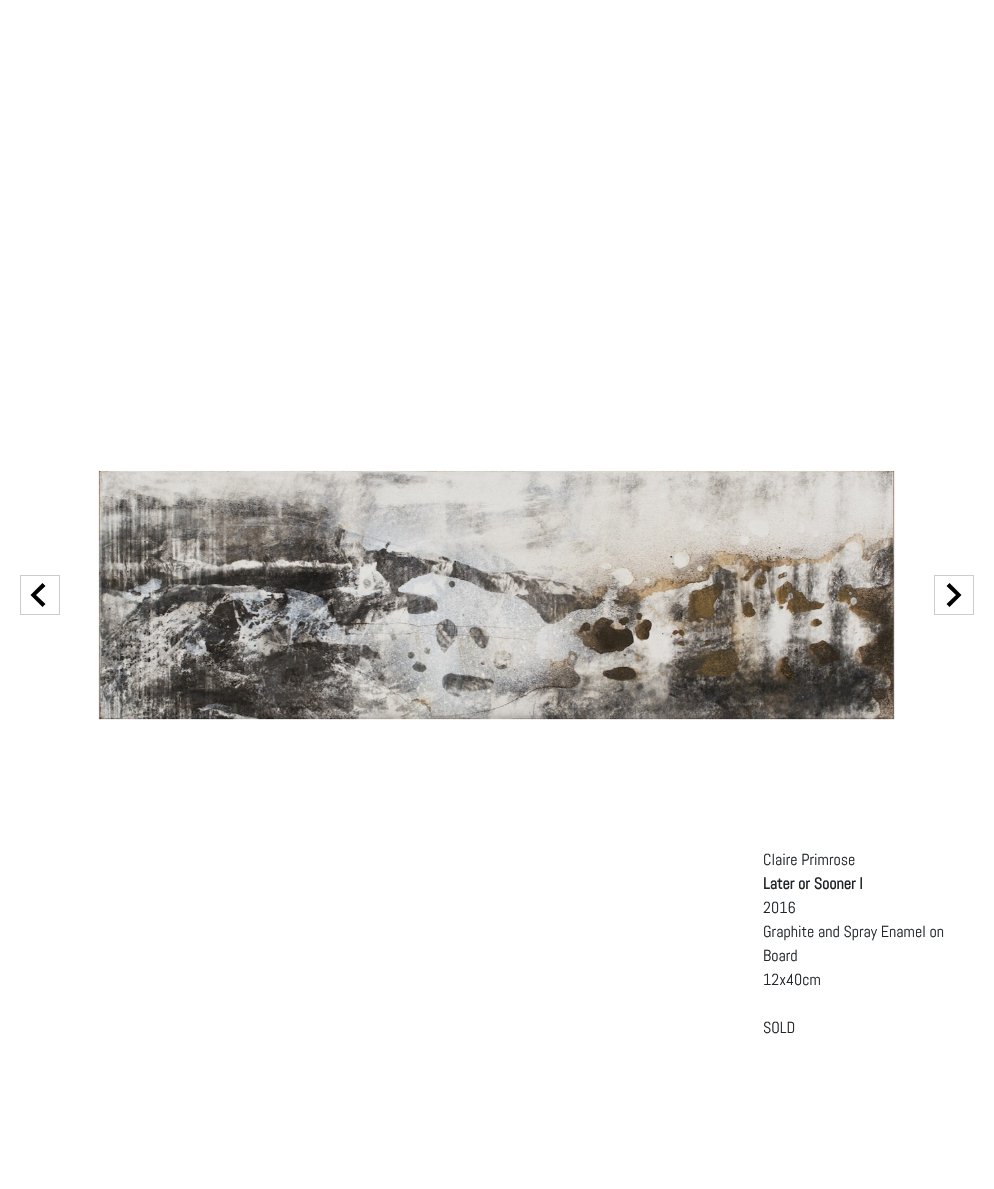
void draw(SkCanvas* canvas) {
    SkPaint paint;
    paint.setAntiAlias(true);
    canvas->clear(0xFFFFFFFF);
    paint.setStyle(SkPaint::kStroke_Style);
    paint.setStrokeWidth(1);
    paint.setColor(0xFFCCCCCC);
    canvas->drawRect(SkRect::MakeXYWH(20.5f, 575.5f, 39, 39), paint);
    paint.setStyle(SkPaint::kFill_Style);
    paint.setColor(0xFF000000);
    canvas->drawPath(SkPathBuilder().moveTo(42.5f, 583).lineTo(45.5f, 586).lineTo(36, 595).lineTo(45.5f, 604).lineTo(42.5f, 607).lineTo(30.5f, 595).close().detach(), paint);
    canvas->drawImageRect(SkImages::DeferredFromEncodedData(SkData::MakeFromFileName("img1.png")), SkRect::MakeXYWH(98, 470, 797, 250), SkSamplingOptions());
    paint.setStyle(SkPaint::kStroke_Style);
    paint.setColor(0xFFCCCCCC);
    canvas->drawRect(SkRect::MakeXYWH(934.5f, 575.5f, 39, 39), paint);
    paint.setStyle(SkPaint::kFill_Style);
    paint.setColor(0xFF000000);
    canvas->drawPath(SkPathBuilder().moveTo(949.5f, 607).lineTo(946.5f, 604).lineTo(956, 595).lineTo(946.5f, 586).lineTo(949.5f, 583).lineTo(961.5f, 595).close().detach(), paint);
    SkFont font1(fontMgr->matchFamilyStyle("Abel", SkFontStyle::Normal()), 16);
    font1.setSubpixel(true);
    paint.setColor(0xFF212529);
    canvas->drawString("Claire Primrose", 763, 865, font1, paint);
    SkFont font2(fontMgr->matchFamilyStyle("Abel", SkFontStyle::Bold()), 16);
    font2.setSubpixel(true);
    canvas->drawString("Later or Sooner l", 763, 889, font2, paint);
    canvas->drawString("2016", 763, 913, font1, paint);
    canvas->drawString("Graphite and Spray Enamel on", 763, 937, font1, paint);
    canvas->drawString("Board", 763, 961, font1, paint);
    canvas->drawString("12x40cm", 763, 985, font1, paint);
    canvas->drawString("SOLD", 763, 1033, font1, paint);
}
